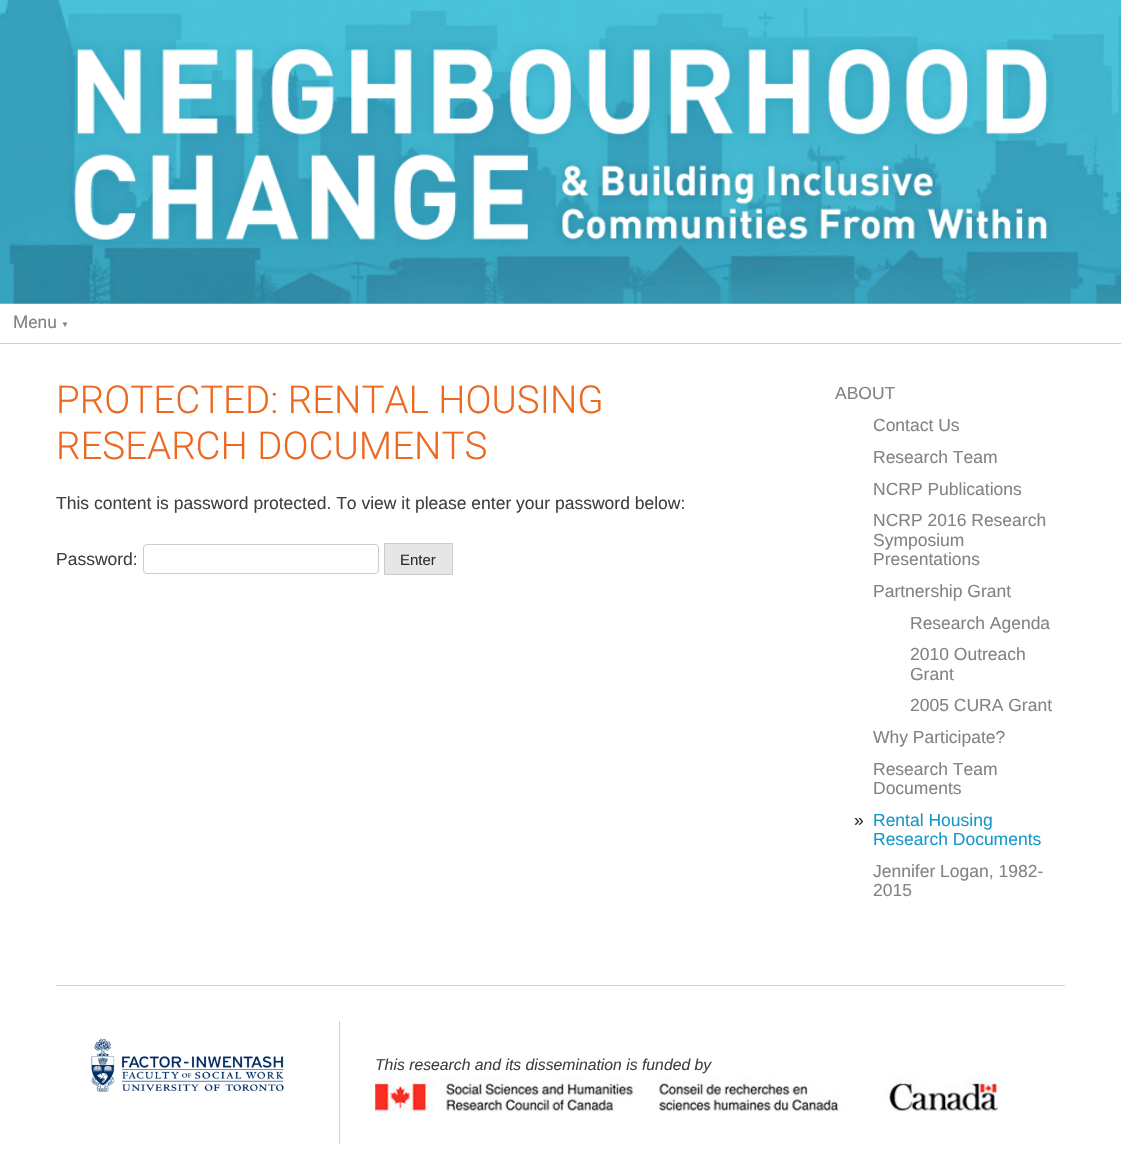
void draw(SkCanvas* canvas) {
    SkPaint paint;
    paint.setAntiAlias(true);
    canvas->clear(0xFFFFFFFF);
    canvas->drawImageRect(SkImages::DeferredFromEncodedData(SkData::MakeFromFileName("img1.png")), SkRect::MakeXYWH(0, 0, 1121, 304), SkSamplingOptions());
    canvas->drawImageRect(SkImages::DeferredFromEncodedData(SkData::MakeFromFileName("img2.png")), SkRect::MakeXYWH(69, 42, 985, 204), SkSamplingOptions());
    paint.setColor(0xFFD0D0D0);
    canvas->drawRect(SkRect::MakeXYWH(0, 343, 1121, 1), paint);
    SkFont font1(fontMgr->matchFamilyStyle("Roboto", SkFontStyle::Normal()), 17.5f);
    font1.setSubpixel(true);
    paint.setColor(0xFF838383);
    canvas->drawString("Menu", 13, 328, font1, paint);
    SkFont font2(fontMgr->matchFamilyStyle("Liberation Sans", SkFontStyle::Normal()), 8);
    font2.setSubpixel(true);
    canvas->drawString("▼", 61, 327, font2, paint);
    SkFont font3(fontMgr->matchFamilyStyle("Roboto", SkFontStyle(300, SkFontStyle::kNormal_Width, SkFontStyle::kUpright_Slant)), 38.5f);
    font3.setSubpixel(true);
    paint.setColor(0xFFEC6921);
    canvas->drawString("PROTECTED: RENTAL HOUSING", 56, 413, font3, paint);
    canvas->drawString("RESEARCH DOCUMENTS", 56, 459, font3, paint);
    SkFont font4(fontMgr->matchFamilyStyle("Liberation Sans", SkFontStyle::Normal()), 17.5f);
    font4.setSubpixel(true);
    paint.setColor(0xFF404040);
    canvas->drawString("This content is password protected. To view it please enter your password below:", 56, 509, font4, paint);
    canvas->drawString("Password:", 56, 565, font4, paint);
    paint.setStyle(SkPaint::kStroke_Style);
    paint.setStrokeWidth(1);
    paint.setColor(0xFFCCCCCC);
    canvas->drawRoundRect(SkRect::MakeXYWH(143.5f, 544.5f, 235, 29), 3.5f, 3.5f, paint);
    paint.setStyle(SkPaint::kFill_Style);
    paint.setColor(0xFFE6E6E6);
    canvas->drawRect(SkRect::MakeXYWH(384.5f, 543.5f, 68, 31), paint);
    paint.setStyle(SkPaint::kStroke_Style);
    paint.setColor(0xFFCCCCCC);
    canvas->drawRect(SkRect::MakeXYWH(384.5f, 543.5f, 68, 31), paint);
    SkFont font5(fontMgr->matchFamilyStyle("Liberation Sans", SkFontStyle::Normal()), 15);
    font5.setSubpixel(true);
    paint.setStyle(SkPaint::kFill_Style);
    paint.setColor(0xFF2E2E2E);
    canvas->drawString("Enter", 400, 565, font5, paint);
    paint.setColor(0xFF838383);
    canvas->drawString("ABOUT", 835, 399, font4, paint);
    canvas->drawString("Contact Us", 873, 431, font4, paint);
    canvas->drawString("Research Team", 873, 463, font4, paint);
    canvas->drawString("NCRP Publications", 873, 495, font4, paint);
    canvas->drawString("NCRP 2016 Research", 873, 526, font4, paint);
    canvas->drawString("Symposium", 873, 546, font4, paint);
    canvas->drawString("Presentations", 873, 565, font4, paint);
    canvas->drawString("Partnership Grant", 873, 597, font4, paint);
    canvas->drawString("Research Agenda", 910, 629, font4, paint);
    canvas->drawString("2010 Outreach", 910, 660, font4, paint);
    canvas->drawString("Grant", 910, 680, font4, paint);
    canvas->drawString("2005 CURA Grant", 910, 711, font4, paint);
    canvas->drawString("Why Participate?", 873, 743, font4, paint);
    canvas->drawString("Research Team", 873, 775, font4, paint);
    canvas->drawString("Documents", 873, 794, font4, paint);
    paint.setColor(0xFF262626);
    canvas->drawString("»", 854, 826, font4, paint);
    paint.setColor(0xFF1598C9);
    canvas->drawString("Rental Housing", 873, 826, font4, paint);
    canvas->drawString("Research Documents", 873, 845, font4, paint);
    paint.setColor(0xFF838383);
    canvas->drawString("Jennifer Logan, 1982-", 873, 877, font4, paint);
    canvas->drawString("2015", 873, 896, font4, paint);
    paint.setColor(0xFFD0D0D0);
    canvas->drawRect(SkRect::MakeXYWH(56, 985, 1009, 1), paint);
    canvas->drawImageRect(SkImages::DeferredFromEncodedData(SkData::MakeFromFileName("img3.png")), SkRect::MakeXYWH(91, 1038, 193, 54), SkSamplingOptions());
    canvas->drawRect(SkRect::MakeXYWH(339, 1021, 1, 123), paint);
    SkFont font6(fontMgr->matchFamilyStyle("Liberation Sans", SkFontStyle::Italic()), 15.75f);
    font6.setSubpixel(true);
    paint.setColor(0xFF404040);
    canvas->drawString("This research and its dissemination is funded by", 375, 1070, font6, paint);
    canvas->drawImageRect(SkImages::DeferredFromEncodedData(SkData::MakeFromFileName("img4.png")), SkRect::MakeXYWH(375, 1077, 625, 35), SkSamplingOptions());
}
